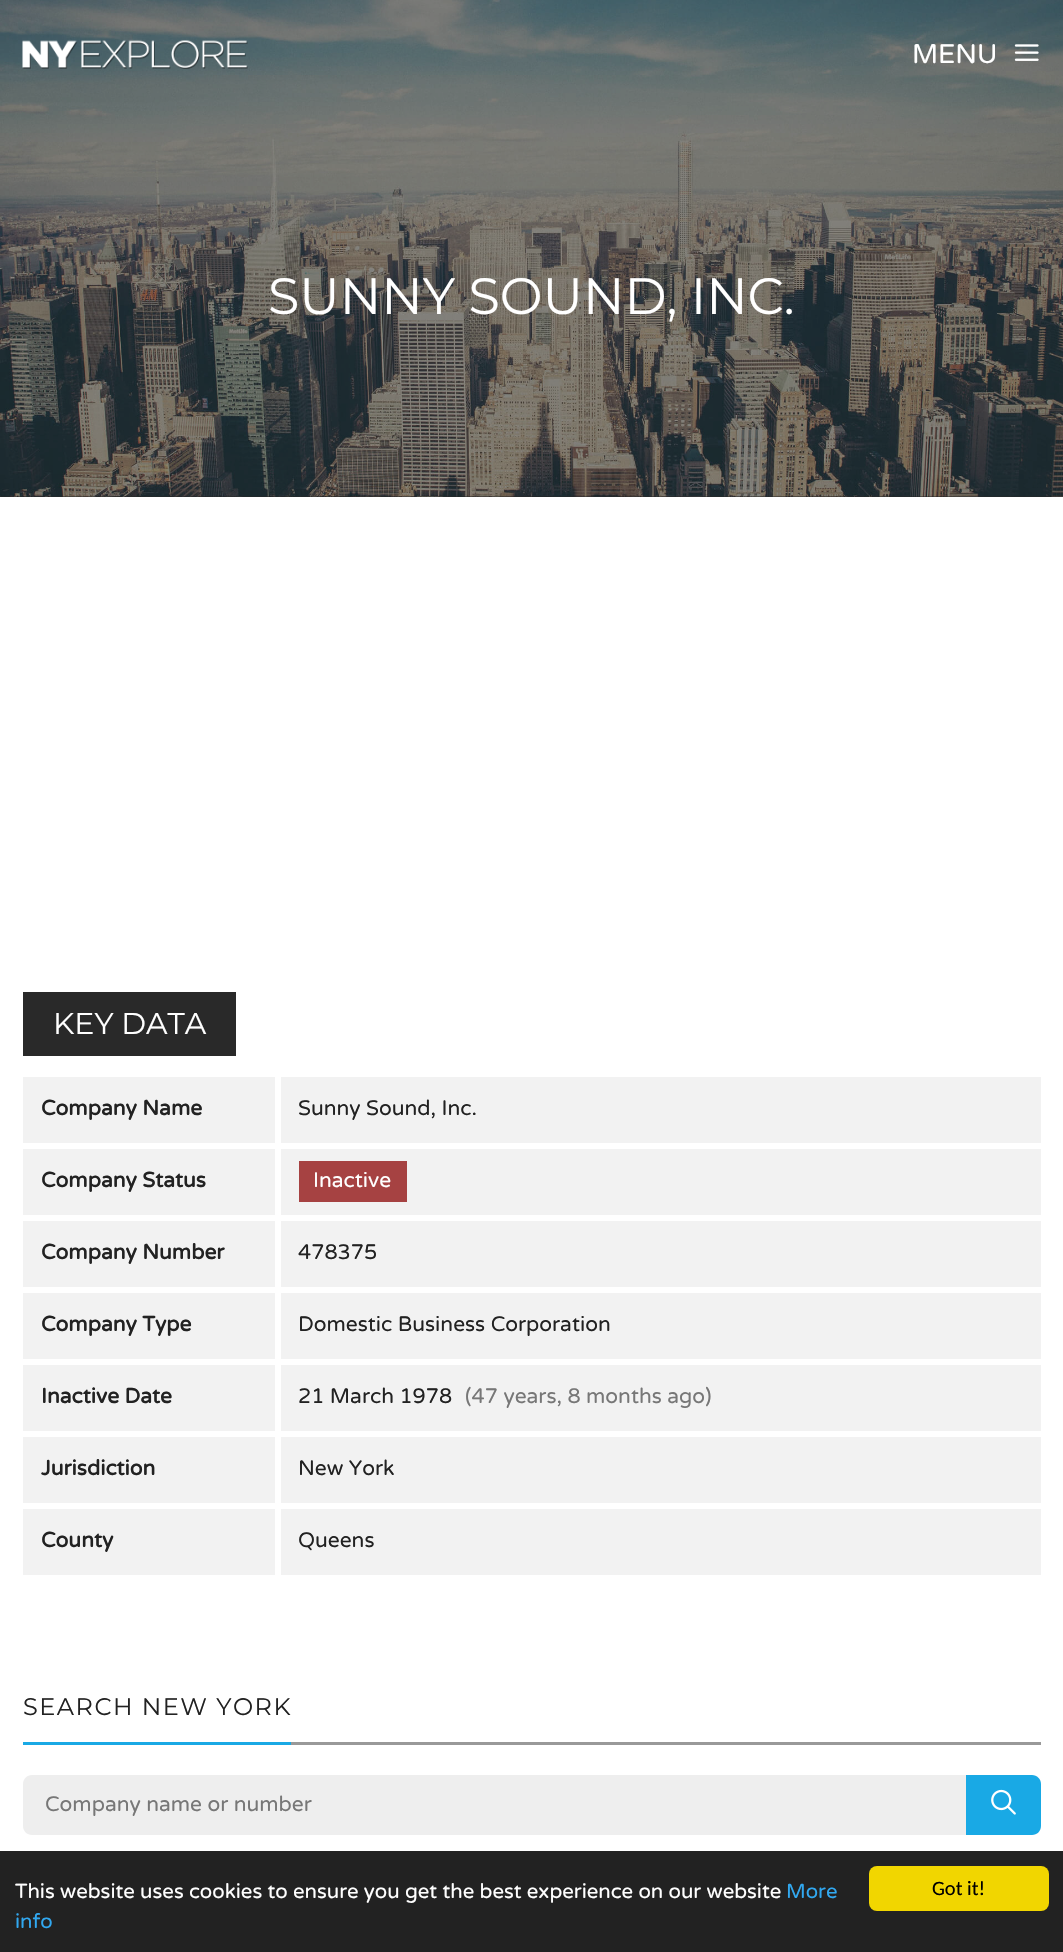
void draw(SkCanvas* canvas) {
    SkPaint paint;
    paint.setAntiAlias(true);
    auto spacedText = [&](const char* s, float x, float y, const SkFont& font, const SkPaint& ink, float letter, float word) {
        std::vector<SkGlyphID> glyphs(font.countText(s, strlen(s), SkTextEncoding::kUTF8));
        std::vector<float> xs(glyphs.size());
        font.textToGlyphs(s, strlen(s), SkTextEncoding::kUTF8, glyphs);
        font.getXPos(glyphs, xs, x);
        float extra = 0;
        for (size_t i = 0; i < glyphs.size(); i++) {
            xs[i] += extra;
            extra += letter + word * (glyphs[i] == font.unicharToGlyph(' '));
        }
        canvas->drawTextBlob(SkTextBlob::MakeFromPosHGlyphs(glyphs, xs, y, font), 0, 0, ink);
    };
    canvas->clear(0xFFFFFFFF);
    paint.setColor(0xFF262626);
    canvas->drawRect(SkRect::MakeXYWH(0, 496, 1063, 1), paint);
    canvas->drawImageRect(SkImages::DeferredFromEncodedData(SkData::MakeFromFileName("img3.png")), SkRect::MakeXYWH(0, 0, 1063, 497), SkSamplingOptions());
    canvas->drawImageRect(SkImages::DeferredFromEncodedData(SkData::MakeFromFileName("img1.png")), SkRect::MakeXYWH(22, 40, 226, 29), SkSamplingOptions());
    SkFont font1(fontMgr->matchFamilyStyle("Varela Round", SkFontStyle::Normal()), 27);
    font1.setSubpixel(true);
    paint.setColor(0xFFFFFFFF);
    canvas->drawString("MENU", 912, 63, font1, paint);
    canvas->drawImageRect(SkImages::DeferredFromEncodedData(SkData::MakeFromFileName("img2.png")), SkRect::MakeXYWH(1014, 44, 25, 17), SkSamplingOptions());
    SkFont font2(fontMgr->matchFamilyStyle("Montserrat", SkFontStyle::Normal()), 51);
    font2.setSubpixel(true);
    canvas->drawString("SUNNY SOUND, INC.", 268, 314, font2, paint);
    paint.setColor(0xFF292929);
    canvas->drawRect(SkRect::MakeXYWH(23, 992, 213, 64), paint);
    SkFont font3(fontMgr->matchFamilyStyle("Montserrat", SkFontStyle::Normal()), 30);
    font3.setSubpixel(true);
    paint.setColor(0xFFFFFFFF);
    canvas->drawString("KEY DATA", 53, 1034, font3, paint);
    paint.setColor(0xFFF2F2F2);
    canvas->drawRect(SkRect::MakeXYWH(23, 1077, 252, 66), paint);
    SkFont font4(fontMgr->matchFamilyStyle("Varela Round", SkFontStyle::Bold()), 21);
    font4.setSubpixel(true);
    paint.setColor(0xFF222222);
    canvas->drawString("Company Name", 41, 1115, font4, paint);
    paint.setColor(0xFFF2F2F2);
    canvas->drawRect(SkRect::MakeXYWH(281, 1077, 760, 66), paint);
    SkFont font5(fontMgr->matchFamilyStyle("Varela Round", SkFontStyle::Normal()), 21);
    font5.setSubpixel(true);
    paint.setColor(0xFF222222);
    canvas->drawString("Sunny Sound, Inc.", 298, 1115, font5, paint);
    paint.setColor(0xFFF2F2F2);
    canvas->drawRect(SkRect::MakeXYWH(23, 1149, 252, 66), paint);
    paint.setColor(0xFF222222);
    canvas->drawString("Company Status", 41, 1187, font4, paint);
    paint.setColor(0xFFF2F2F2);
    canvas->drawRect(SkRect::MakeXYWH(281, 1149, 760, 66), paint);
    paint.setColor(0xFFA64242);
    canvas->drawRect(SkRect::MakeXYWH(299, 1161, 108, 41), paint);
    paint.setColor(0xFFFFFFFF);
    canvas->drawString("Inactive", 313, 1187, font5, paint);
    paint.setColor(0xFFF2F2F2);
    canvas->drawRect(SkRect::MakeXYWH(23, 1221, 252, 66), paint);
    paint.setColor(0xFF222222);
    canvas->drawString("Company Number", 41, 1259, font4, paint);
    paint.setColor(0xFFF2F2F2);
    canvas->drawRect(SkRect::MakeXYWH(281, 1221, 760, 66), paint);
    paint.setColor(0xFF222222);
    canvas->drawString("478375", 298, 1259, font5, paint);
    paint.setColor(0xFFF2F2F2);
    canvas->drawRect(SkRect::MakeXYWH(23, 1293, 252, 66), paint);
    paint.setColor(0xFF222222);
    canvas->drawString("Company Type", 41, 1331, font4, paint);
    paint.setColor(0xFFF2F2F2);
    canvas->drawRect(SkRect::MakeXYWH(281, 1293, 760, 66), paint);
    paint.setColor(0xFF222222);
    canvas->drawString("Domestic Business Corporation", 298, 1331, font5, paint);
    paint.setColor(0xFFF2F2F2);
    canvas->drawRect(SkRect::MakeXYWH(23, 1365, 252, 66), paint);
    paint.setColor(0xFF222222);
    canvas->drawString("Inactive Date", 41, 1403, font4, paint);
    paint.setColor(0xFFF2F2F2);
    canvas->drawRect(SkRect::MakeXYWH(281, 1365, 760, 66), paint);
    paint.setColor(0xFF222222);
    canvas->drawString("21 March 1978", 298, 1403, font5, paint);
    paint.setColor(0xFF777777);
    canvas->drawString("(47 years, 8 months ago)", 465, 1403, font5, paint);
    paint.setColor(0xFFF2F2F2);
    canvas->drawRect(SkRect::MakeXYWH(23, 1437, 252, 66), paint);
    paint.setColor(0xFF222222);
    canvas->drawString("Jurisdiction", 41, 1475, font4, paint);
    paint.setColor(0xFFF2F2F2);
    canvas->drawRect(SkRect::MakeXYWH(281, 1437, 760, 66), paint);
    paint.setColor(0xFF222222);
    canvas->drawString("New York", 298, 1475, font5, paint);
    paint.setColor(0xFFF2F2F2);
    canvas->drawRect(SkRect::MakeXYWH(23, 1509, 252, 66), paint);
    paint.setColor(0xFF222222);
    canvas->drawString("County", 41, 1547, font4, paint);
    paint.setColor(0xFFF2F2F2);
    canvas->drawRect(SkRect::MakeXYWH(281, 1509, 760, 66), paint);
    paint.setColor(0xFF222222);
    canvas->drawString("Queens", 298, 1547, font5, paint);
    paint.setColor(0xFF999999);
    canvas->drawRect(SkRect::MakeXYWH(291, 1742, 750, 3), paint);
    paint.setColor(0xFF19A9E5);
    canvas->drawRect(SkRect::MakeXYWH(23, 1742, 268, 3), paint);
    SkFont font6(fontMgr->matchFamilyStyle("Montserrat", SkFontStyle::Normal()), 24);
    font6.setSubpixel(true);
    paint.setColor(0xFF222222);
    spacedText("SEARCH NEW YORK", 23, 1715, font6, paint, 1.5f, 0);
    paint.setColor(0xFFEEEEEE);
    canvas->drawPath(SkPathBuilder().moveTo(32, 1775).lineTo(966, 1775).lineTo(966, 1835).lineTo(32, 1835).cubicTo(27, 1835, 23, 1831, 23, 1826).lineTo(23, 1784).cubicTo(23, 1779, 27, 1775, 32, 1775).close().detach(), paint);
    paint.setColor(0xFF777777);
    canvas->drawString("Company name or number", 45, 1811, font5, paint);
    paint.setColor(0xFF19A9E5);
    canvas->drawPath(SkPathBuilder().moveTo(966, 1775).lineTo(1032, 1775).cubicTo(1037, 1775, 1041, 1779, 1041, 1784).lineTo(1041, 1826).cubicTo(1041, 1831, 1037, 1835, 1032, 1835).lineTo(966, 1835).close().detach(), paint);
    canvas->drawImageRect(SkImages::DeferredFromEncodedData(SkData::MakeFromFileName("img4.png")), SkRect::MakeXYWH(991, 1789, 25, 26), SkSamplingOptions());
    paint.setColor(0xFF222222);
    canvas->drawRect(SkRect::MakeXYWH(0, 1851, 1063, 101), paint);
    SkFont font7(fontMgr->matchFamilyStyle("Varela Round", SkFontStyle::Normal()), 20.4f);
    font7.setSubpixel(true);
    paint.setColor(0xFFFFFFFF);
    canvas->drawString("This website uses cookies to ensure you get the best experience on our website", 15, 1898, font7, paint);
    paint.setColor(0xFF31A8F0);
    canvas->drawString("More", 786, 1898, font7, paint);
    canvas->drawString("info", 15, 1928, font7, paint);
    paint.setColor(0xFFF1D600);
    canvas->drawRoundRect(SkRect::MakeXYWH(869, 1866, 180, 45), 8, 8, paint);
    SkFont font8(fontMgr->matchFamilyStyle("Carlito", SkFontStyle::Normal()), 20.4f);
    font8.setSubpixel(true);
    paint.setColor(0xFF000000);
    canvas->drawString("Got it!", 932, 1895, font8, paint);
}
